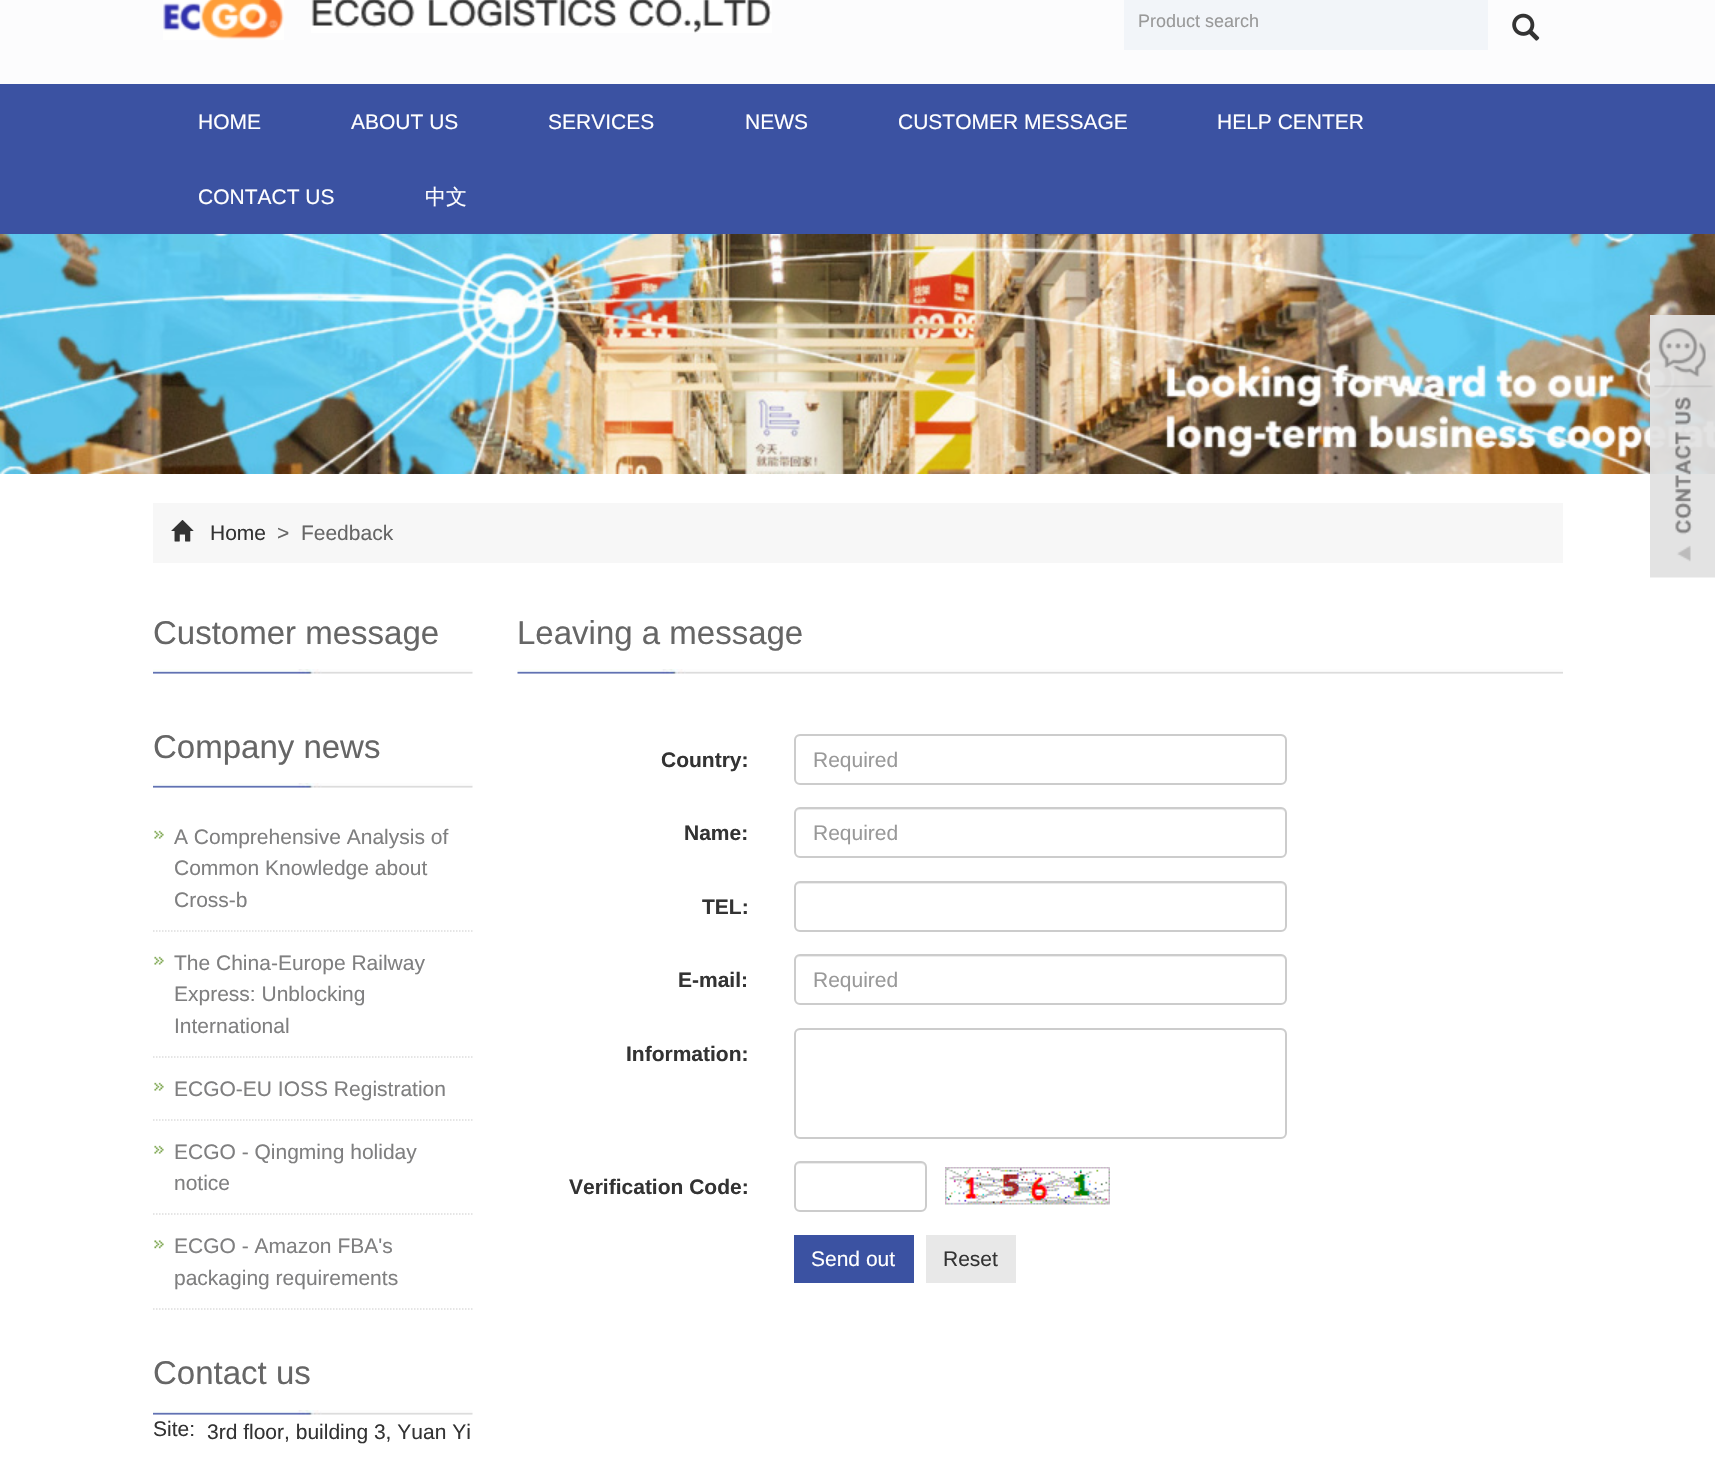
void draw(SkCanvas* canvas) {
    SkPaint paint;
    paint.setAntiAlias(true);
    canvas->clear(0xFFFFFFFF);
    paint.setColor(0xFFFCFCFD);
    canvas->drawRect(SkRect::MakeXYWH(0, 0, 1715, 84), paint);
    canvas->drawImageRect(SkImages::DeferredFromEncodedData(SkData::MakeFromFileName("img1.png")), SkRect::MakeXYWH(163, 0, 121, 40), SkSamplingOptions());
    canvas->drawImageRect(SkImages::DeferredFromEncodedData(SkData::MakeFromFileName("img2.png")), SkRect::MakeXYWH(311, 0, 461, 33), SkSamplingOptions());
    paint.setColor(0xFFF2F5F9);
    canvas->drawRect(SkRect::MakeXYWH(1124, 0, 364, 50), paint);
    SkFont font1(fontMgr->matchFamilyStyle("Liberation Sans", SkFontStyle::Normal()), 18);
    font1.setSubpixel(true);
    paint.setColor(0xFF999999);
    canvas->drawString("Product search", 1138, 27, font1, paint);
    canvas->drawImageRect(SkImages::DeferredFromEncodedData(SkData::MakeFromFileName("img3.png")), SkRect::MakeXYWH(1512, 13, 28, 28), SkSamplingOptions());
    paint.setColor(0xFF3B52A2);
    canvas->drawRect(SkRect::MakeXYWH(0, 84, 1715, 150), paint);
    SkFont font2(fontMgr->matchFamilyStyle("Liberation Sans", SkFontStyle::Normal()), 21);
    font2.setSubpixel(true);
    paint.setColor(0xFFFFFFFF);
    canvas->drawString("HOME", 198, 129, font2, paint);
    canvas->drawString("ABOUT US", 351, 129, font2, paint);
    canvas->drawString("SERVICES", 548, 129, font2, paint);
    canvas->drawString("NEWS", 745, 129, font2, paint);
    canvas->drawString("CUSTOMER MESSAGE", 898, 129, font2, paint);
    canvas->drawString("HELP CENTER", 1217, 129, font2, paint);
    canvas->drawString("CONTACT US", 198, 204, font2, paint);
    SkFont font3(fontMgr->matchFamilyStyle("WenQuanYi Zen Hei", SkFontStyle(500, SkFontStyle::kNormal_Width, SkFontStyle::kUpright_Slant)), 21);
    font3.setSubpixel(true);
    canvas->drawString("中文", 425, 204, font3, paint);
    canvas->drawImageRect(SkImages::DeferredFromEncodedData(SkData::MakeFromFileName("img4.png")), SkRect::MakeXYWH(0, 234, 1715, 240), SkSamplingOptions());
    canvas->drawImageRect(SkImages::DeferredFromEncodedData(SkData::MakeFromFileName("img5.png")), SkRect::MakeXYWH(1650, 315, 65, 263), SkSamplingOptions());
    paint.setColor(0xFFF7F7F7);
    canvas->drawRect(SkRect::MakeXYWH(153, 503, 1410, 60), paint);
    canvas->drawImageRect(SkImages::DeferredFromEncodedData(SkData::MakeFromFileName("img6.png")), SkRect::MakeXYWH(171, 520, 23, 22), SkSamplingOptions());
    paint.setColor(0xFF333333);
    canvas->drawString("Home", 210, 540, font2, paint);
    paint.setColor(0xFF666666);
    canvas->drawString(">  Feedback", 277, 540, font2, paint);
    canvas->drawImageRect(SkImages::DeferredFromEncodedData(SkData::MakeFromFileName("img7.png")), SkRect::MakeXYWH(153, 669, 320, 5), SkSamplingOptions());
    SkFont font4(fontMgr->matchFamilyStyle("Liberation Sans", SkFontStyle::Normal()), 33);
    font4.setSubpixel(true);
    canvas->drawString("Customer message", 153, 644, font4, paint);
    canvas->drawImageRect(SkImages::DeferredFromEncodedData(SkData::MakeFromFileName("img7.png")), SkRect::MakeXYWH(153, 783, 320, 5), SkSamplingOptions());
    canvas->drawString("Company news", 153, 758, font4, paint);
    canvas->drawImageRect(SkImages::DeferredFromEncodedData(SkData::MakeFromFileName("img8.png")), SkRect::MakeXYWH(154, 830, 10, 9), SkSamplingOptions());
    paint.setStyle(SkPaint::kStroke_Style);
    paint.setStrokeWidth(1.5f);
    paint.setColor(0xFFDDDDDD);
    paint.setPathEffect(SkDashPathEffect::Make({{1.5f, 1.5f}}, 0));
    canvas->drawPath(SkPathBuilder().moveTo(153, 931).lineTo(472.5f, 931).detach(), paint);
    paint.setPathEffect(nullptr);
    paint.setStyle(SkPaint::kFill_Style);
    paint.setColor(0xFF7F7F80);
    canvas->drawString("A Comprehensive Analysis of", 174, 844, font2, paint);
    canvas->drawString("Common Knowledge about", 174, 875, font2, paint);
    canvas->drawString("Cross-b", 174, 907, font2, paint);
    canvas->drawImageRect(SkImages::DeferredFromEncodedData(SkData::MakeFromFileName("img8.png")), SkRect::MakeXYWH(154, 956, 10, 9), SkSamplingOptions());
    paint.setStyle(SkPaint::kStroke_Style);
    paint.setColor(0xFFDDDDDD);
    paint.setPathEffect(SkDashPathEffect::Make({{1.5f, 1.5f}}, 0));
    canvas->drawPath(SkPathBuilder().moveTo(153, 1057).lineTo(472.5f, 1057).detach(), paint);
    paint.setPathEffect(nullptr);
    paint.setStyle(SkPaint::kFill_Style);
    paint.setColor(0xFF7F7F80);
    canvas->drawString("The China-Europe Railway", 174, 970, font2, paint);
    canvas->drawString("Express: Unblocking", 174, 1001, font2, paint);
    canvas->drawString("International", 174, 1033, font2, paint);
    canvas->drawImageRect(SkImages::DeferredFromEncodedData(SkData::MakeFromFileName("img8.png")), SkRect::MakeXYWH(154, 1082, 10, 9), SkSamplingOptions());
    paint.setStyle(SkPaint::kStroke_Style);
    paint.setColor(0xFFDDDDDD);
    paint.setPathEffect(SkDashPathEffect::Make({{1.5f, 1.5f}}, 0));
    canvas->drawPath(SkPathBuilder().moveTo(153, 1120).lineTo(472.5f, 1120).detach(), paint);
    paint.setPathEffect(nullptr);
    paint.setStyle(SkPaint::kFill_Style);
    paint.setColor(0xFF7F7F80);
    canvas->drawString("ECGO-EU IOSS Registration", 174, 1096, font2, paint);
    canvas->drawImageRect(SkImages::DeferredFromEncodedData(SkData::MakeFromFileName("img8.png")), SkRect::MakeXYWH(154, 1145, 10, 9), SkSamplingOptions());
    paint.setStyle(SkPaint::kStroke_Style);
    paint.setColor(0xFFDDDDDD);
    paint.setPathEffect(SkDashPathEffect::Make({{1.5f, 1.5f}}, 0));
    canvas->drawPath(SkPathBuilder().moveTo(153, 1214).lineTo(472.5f, 1214).detach(), paint);
    paint.setPathEffect(nullptr);
    paint.setStyle(SkPaint::kFill_Style);
    paint.setColor(0xFF7F7F80);
    canvas->drawString("ECGO - Qingming holiday", 174, 1159, font2, paint);
    canvas->drawString("notice", 174, 1190, font2, paint);
    canvas->drawImageRect(SkImages::DeferredFromEncodedData(SkData::MakeFromFileName("img9.png")), SkRect::MakeXYWH(154, 1240, 10, 9), SkSamplingOptions());
    paint.setStyle(SkPaint::kStroke_Style);
    paint.setColor(0xFFDDDDDD);
    paint.setPathEffect(SkDashPathEffect::Make({{1.5f, 1.5f}}, 0));
    canvas->drawPath(SkPathBuilder().moveTo(153, 1309).lineTo(472.5f, 1309).detach(), paint);
    paint.setPathEffect(nullptr);
    paint.setStyle(SkPaint::kFill_Style);
    paint.setColor(0xFF7F7F80);
    canvas->drawString("ECGO - Amazon FBA's", 174, 1253, font2, paint);
    canvas->drawString("packaging requirements", 174, 1285, font2, paint);
    canvas->drawImageRect(SkImages::DeferredFromEncodedData(SkData::MakeFromFileName("img7.png")), SkRect::MakeXYWH(153, 1410, 320, 5), SkSamplingOptions());
    paint.setColor(0xFF666666);
    canvas->drawString("Contact us", 153, 1384, font4, paint);
    paint.setColor(0xFF333333);
    canvas->drawString("Site:", 153, 1436, font2, paint);
    canvas->drawString("3rd floor, building 3, Yuan Yi", 207, 1439, font2, paint);
    canvas->drawImageRect(SkImages::DeferredFromEncodedData(SkData::MakeFromFileName("img10.png")), SkRect::MakeXYWH(517, 669, 1046, 5), SkSamplingOptions());
    paint.setColor(0xFF666666);
    canvas->drawString("Leaving a message", 517, 644, font4, paint);
    SkFont font5(fontMgr->matchFamilyStyle("Liberation Sans", SkFontStyle::Bold()), 21);
    font5.setSubpixel(true);
    paint.setColor(0xFF333333);
    canvas->drawString("Country:", 661, 767, font5, paint);
    paint.setColor(0xFFECECEC);
    canvas->drawPath(SkPathBuilder().moveTo(800, 736).lineTo(1281, 736).cubicTo(1283, 736, 1286, 739, 1286, 741).lineTo(1286, 740).cubicTo(1286, 737, 1284, 735, 1281, 735).lineTo(800, 735).cubicTo(797, 735, 795, 737, 795, 740).lineTo(795, 741).cubicTo(795, 739, 797, 736, 800, 736).close().detach(), paint);
    paint.setStyle(SkPaint::kStroke_Style);
    paint.setStrokeWidth(2);
    paint.setColor(0xFFCCCCCC);
    canvas->drawRoundRect(SkRect::MakeXYWH(795, 735, 491, 49), 5, 5, paint);
    paint.setStyle(SkPaint::kFill_Style);
    paint.setColor(0xFF999999);
    canvas->drawString("Required", 813, 767, font2, paint);
    paint.setColor(0xFF333333);
    canvas->drawString("Name:", 684, 840, font5, paint);
    paint.setColor(0xFFECECEC);
    canvas->drawPath(SkPathBuilder().moveTo(800, 810).lineTo(1281, 810).cubicTo(1283, 810, 1286, 812, 1286, 814).cubicTo(1286, 811, 1284, 809, 1281, 809).lineTo(800, 809).cubicTo(797, 809, 795, 811, 795, 814).cubicTo(795, 812, 797, 810, 800, 810).close().detach(), paint);
    paint.setStyle(SkPaint::kStroke_Style);
    paint.setColor(0xFFCCCCCC);
    canvas->drawRoundRect(SkRect::MakeXYWH(795, 808, 491, 49), 5, 5, paint);
    paint.setStyle(SkPaint::kFill_Style);
    paint.setColor(0xFF999999);
    canvas->drawString("Required", 813, 840, font2, paint);
    paint.setColor(0xFF333333);
    canvas->drawString("TEL:", 702, 914, font5, paint);
    paint.setColor(0xFFECECEC);
    canvas->drawPath(SkPathBuilder().moveTo(800, 884).lineTo(1281, 884).cubicTo(1283, 884, 1286, 886, 1286, 888).lineTo(1286, 887).cubicTo(1286, 884, 1284, 882, 1281, 882).lineTo(800, 882).cubicTo(797, 882, 795, 884, 795, 887).lineTo(795, 888).cubicTo(795, 886, 797, 884, 800, 884).close().detach(), paint);
    paint.setStyle(SkPaint::kStroke_Style);
    paint.setColor(0xFFCCCCCC);
    canvas->drawRoundRect(SkRect::MakeXYWH(795, 882, 491, 49), 5, 5, paint);
    paint.setStyle(SkPaint::kFill_Style);
    paint.setColor(0xFF333333);
    canvas->drawString("E-mail:", 678, 987, font5, paint);
    paint.setColor(0xFFECECEC);
    canvas->drawPath(SkPathBuilder().moveTo(800, 957).lineTo(1281, 957).cubicTo(1283, 957, 1286, 959, 1286, 962).lineTo(1286, 961).cubicTo(1286, 958, 1284, 956, 1281, 956).lineTo(800, 956).cubicTo(797, 956, 795, 958, 795, 961).lineTo(795, 962).cubicTo(795, 959, 797, 957, 800, 957).close().detach(), paint);
    paint.setStyle(SkPaint::kStroke_Style);
    paint.setColor(0xFFCCCCCC);
    canvas->drawRoundRect(SkRect::MakeXYWH(795, 955, 491, 49), 5, 5, paint);
    paint.setStyle(SkPaint::kFill_Style);
    paint.setColor(0xFF999999);
    canvas->drawString("Required", 813, 987, font2, paint);
    paint.setColor(0xFF333333);
    canvas->drawString("Information:", 626, 1061, font5, paint);
    paint.setColor(0xFFECECEC);
    canvas->drawPath(SkPathBuilder().moveTo(800, 1030).lineTo(1281, 1030).cubicTo(1283, 1030, 1286, 1033, 1286, 1035).lineTo(1286, 1034).cubicTo(1286, 1031, 1284, 1029, 1281, 1029).lineTo(800, 1029).cubicTo(797, 1029, 795, 1031, 795, 1034).lineTo(795, 1035).cubicTo(795, 1033, 797, 1030, 800, 1030).close().detach(), paint);
    paint.setStyle(SkPaint::kStroke_Style);
    paint.setColor(0xFFCCCCCC);
    canvas->drawRoundRect(SkRect::MakeXYWH(795, 1029, 491, 109), 5, 5, paint);
    paint.setStyle(SkPaint::kFill_Style);
    paint.setColor(0xFF333333);
    canvas->drawString("Verification Code:", 569, 1194, font5, paint);
    paint.setColor(0xFFECECEC);
    canvas->drawPath(SkPathBuilder().moveTo(800, 1164).lineTo(921, 1164).cubicTo(923, 1164, 926, 1166, 926, 1168).cubicTo(926, 1165, 924, 1163, 921, 1163).lineTo(800, 1163).cubicTo(797, 1163, 795, 1165, 795, 1168).cubicTo(795, 1166, 797, 1164, 800, 1164).close().detach(), paint);
    paint.setStyle(SkPaint::kStroke_Style);
    paint.setColor(0xFFCCCCCC);
    canvas->drawRoundRect(SkRect::MakeXYWH(795, 1162, 131, 49), 5, 5, paint);
    canvas->drawImageRect(SkImages::DeferredFromEncodedData(SkData::MakeFromFileName("img11.png")), SkRect::MakeXYWH(945, 1167, 165, 38), SkSamplingOptions());
    paint.setStyle(SkPaint::kFill_Style);
    paint.setColor(0xFF3B52A2);
    canvas->drawRect(SkRect::MakeXYWH(794, 1235, 120, 48), paint);
    paint.setColor(0xFFFFFFFF);
    canvas->drawString("Send out", 811, 1266, font2, paint);
    paint.setColor(0xFFE8E8E8);
    canvas->drawRect(SkRect::MakeXYWH(926, 1235, 90, 48), paint);
    paint.setColor(0xFF333333);
    canvas->drawString("Reset", 943, 1266, font2, paint);
}
